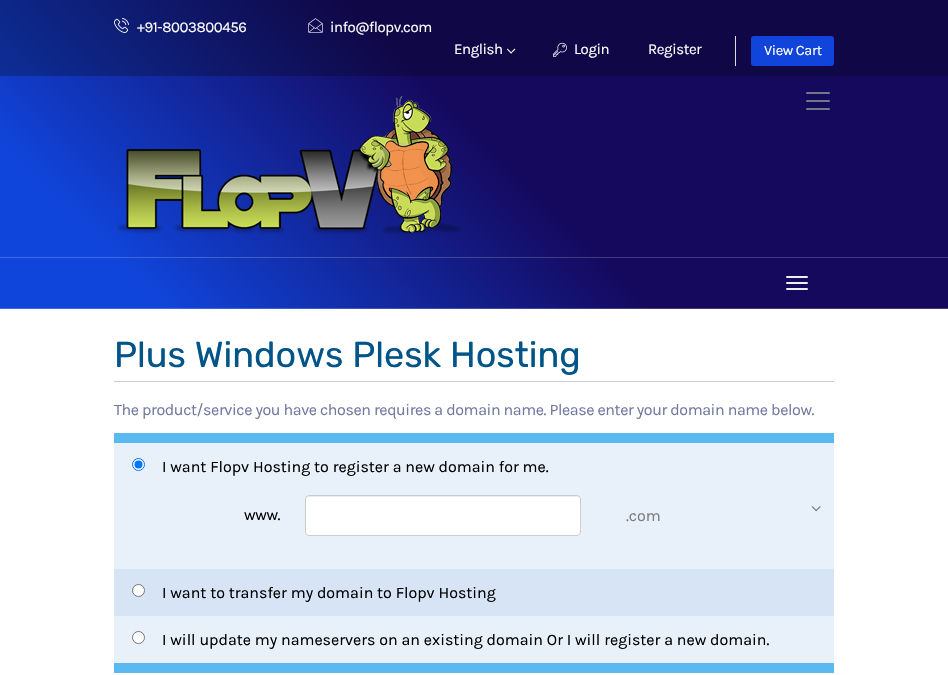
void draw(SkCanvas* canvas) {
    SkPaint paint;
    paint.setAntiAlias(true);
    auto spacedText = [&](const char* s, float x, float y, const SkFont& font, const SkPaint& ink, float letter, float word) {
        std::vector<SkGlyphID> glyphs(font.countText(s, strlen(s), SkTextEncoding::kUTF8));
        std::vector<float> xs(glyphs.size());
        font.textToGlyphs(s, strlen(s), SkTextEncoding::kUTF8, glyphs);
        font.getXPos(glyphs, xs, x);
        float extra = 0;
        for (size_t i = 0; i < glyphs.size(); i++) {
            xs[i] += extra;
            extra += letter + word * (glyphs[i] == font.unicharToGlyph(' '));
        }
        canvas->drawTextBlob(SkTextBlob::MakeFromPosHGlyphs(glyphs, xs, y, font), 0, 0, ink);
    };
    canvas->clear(0xFFFFFFFF);
    {
        const SkColor colors[] = {0xFF1045DB, 0xFF1045DB, 0xFF15095E, 0xFF15095E};
        const float stops[] = {0, 0.13f, 0.52f, 1};
        const SkPoint ends[] = {{160, 469}, {788, -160}};
        paint.setShader(SkGradientShader::MakeLinear(ends, colors, stops, 4, SkTileMode::kClamp));
        paint.setAlpha(255);
    }
    canvas->drawRect(SkRect::MakeXYWH(0, 76, 948, 232), paint);
    {
        const SkColor colors[] = {0xFF406AE2, 0xFF406AE2, 0xFF443A7E, 0xFF443A7E};
        const float stops[] = {0, 0.13f, 0.52f, 1};
        const SkPoint ends[] = {{160, 469}, {788, -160}};
        paint.setShader(SkGradientShader::MakeLinear(ends, colors, stops, 4, SkTileMode::kClamp));
        paint.setAlpha(255);
    }
    canvas->drawRect(SkRect::MakeXYWH(0, 308, 948, 1), paint);
    canvas->drawRect(SkRect::MakeXYWH(0, 257, 948, 1), paint);
    {
        const SkColor colors[] = {0xFF0C34A4, 0xFF0C34A4, 0xFF100747, 0xFF100747};
        const float stops[] = {0, 0.13f, 0.52f, 1};
        const SkPoint ends[] = {{160, 469}, {788, -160}};
        paint.setShader(SkGradientShader::MakeLinear(ends, colors, stops, 4, SkTileMode::kClamp));
        paint.setAlpha(255);
    }
    canvas->drawRect(SkRect::MakeXYWH(0, 0, 948, 76), paint);
    canvas->drawImageRect(SkImages::DeferredFromEncodedData(SkData::MakeFromFileName("img1.png")), SkRect::MakeXYWH(114, 18, 15, 15), SkSamplingOptions());
    SkFont font1(fontMgr->matchFamilyStyle("Karla", SkFontStyle::Normal()), 15);
    font1.setSubpixel(true);
    paint.setShader(nullptr);
    paint.setColor(0xFFFFFFFF);
    spacedText("+91-8003800456", 137, 32, font1, paint, -0.4f, 0);
    canvas->drawImageRect(SkImages::DeferredFromEncodedData(SkData::MakeFromFileName("img2.png")), SkRect::MakeXYWH(308, 18, 15, 15), SkSamplingOptions());
    spacedText("info@flopv.com", 330, 32, font1, paint, -0.4f, 0);
    spacedText("English", 454, 54, font1, paint, -0.4f, 0);
    canvas->drawPath(SkPathBuilder().moveTo(514.5f, 48.5f).lineTo(515.5f, 49.5f).lineTo(511, 53.5f).lineTo(510.5f, 53).close().detach(), paint);
    canvas->drawPath(SkPathBuilder().moveTo(507.5f, 48.5f).lineTo(512, 53).lineTo(511, 53.5f).lineTo(507, 49.5f).close().detach(), paint);
    canvas->drawImageRect(SkImages::DeferredFromEncodedData(SkData::MakeFromFileName("img3.png")), SkRect::MakeXYWH(553, 42, 14, 15), SkSamplingOptions());
    spacedText("Login", 574, 54, font1, paint, -0.4f, 0);
    spacedText("Register", 648, 54, font1, paint, -0.4f, 0);
    paint.setColor(0xFFDDDDDD);
    canvas->drawRect(SkRect::MakeXYWH(735, 36, 1, 30), paint);
    paint.setColor(0xFF1044DB);
    canvas->drawRoundRect(SkRect::MakeXYWH(751, 36, 83, 30), 3, 3, paint);
    SkFont font2(fontMgr->matchFamilyStyle("Karla", SkFontStyle::Normal()), 14.5f);
    font2.setSubpixel(true);
    paint.setColor(0xFFFFFFFF);
    spacedText("View Cart", 764, 55, font2, paint, -0.4f, 0);
    canvas->drawImageRect(SkImages::DeferredFromEncodedData(SkData::MakeFromFileName("img4.png")), SkRect::MakeXYWH(116, 96, 346, 139), SkSamplingOptions());
    paint.setColor(0xFF70798B);
    canvas->drawRoundRect(SkRect::MakeXYWH(806, 108, 24, 2), 1, 1, paint);
    canvas->drawRoundRect(SkRect::MakeXYWH(806, 100, 24, 2), 1, 1, paint);
    canvas->drawRoundRect(SkRect::MakeXYWH(806, 92, 24, 2), 1, 1, paint);
    paint.setColor(0xFFEEEEEE);
    canvas->drawRoundRect(SkRect::MakeXYWH(786, 276, 22, 2), 1, 1, paint);
    canvas->drawRoundRect(SkRect::MakeXYWH(786, 282, 22, 2), 1, 1, paint);
    canvas->drawRoundRect(SkRect::MakeXYWH(786, 288, 22, 2), 1, 1, paint);
    paint.setColor(0xFFCCCCCC);
    canvas->drawRect(SkRect::MakeXYWH(114, 381, 720, 1), paint);
    SkFont font3(fontMgr->matchFamilyStyle("Rubik", SkFontStyle::Normal()), 36);
    font3.setSubpixel(true);
    paint.setColor(0xFF005588);
    canvas->drawString("Plus Windows Plesk Hosting", 114, 367, font3, paint);
    SkFont font4(fontMgr->matchFamilyStyle("Karla", SkFontStyle::Normal()), 16);
    font4.setSubpixel(true);
    paint.setColor(0xFF70799F);
    spacedText("The product/service you have chosen requires a domain name. Please enter your domain name below.", 114, 415, font4, paint, -0.4f, 0);
    paint.setColor(0xFF5AB9F1);
    canvas->drawRect(SkRect::MakeXYWH(114, 433, 720, 10), paint);
    canvas->drawRect(SkRect::MakeXYWH(114, 663, 720, 10), paint);
    paint.setColor(0xFFE8F0F9);
    canvas->drawRect(SkRect::MakeXYWH(114, 443, 720, 126), paint);
    paint.setColor(0xFFFFFFFF);
    canvas->drawCircle(138.5f, 464.5f, 6, paint);
    paint.setStyle(SkPaint::kStroke_Style);
    paint.setStrokeWidth(1);
    paint.setColor(0xFF0075FF);
    canvas->drawCircle(138.5f, 464.5f, 6, paint);
    paint.setStyle(SkPaint::kFill_Style);
    canvas->drawCircle(138.5f, 464.5f, 4, paint);
    paint.setColor(0xFF000000);
    canvas->drawString("I want Flopv Hosting to register a new domain for me.", 162, 472, font4, paint);
    spacedText("www.", 244, 520, font4, paint, -0.4f, 0);
    paint.setColor(0xFFFFFFFF);
    canvas->drawRoundRect(SkRect::MakeXYWH(305, 495, 276, 41), 4, 4, paint);
    paint.setColor(0xFFECECEC);
    canvas->drawPath(SkPathBuilder().moveTo(309, 497).lineTo(577, 497).cubicTo(579, 497, 580, 498, 580, 500).lineTo(580, 499).cubicTo(580, 497, 579, 496, 577, 496).lineTo(309, 496).cubicTo(307, 496, 306, 497, 306, 499).lineTo(306, 500).cubicTo(306, 498, 307, 497, 309, 497).close().detach(), paint);
    paint.setStyle(SkPaint::kStroke_Style);
    paint.setColor(0xFFCCCCCC);
    canvas->drawRoundRect(SkRect::MakeXYWH(305.5f, 495.5f, 275, 40), 3.5f, 3.5f, paint);
    canvas->drawImageRect(SkImages::DeferredFromEncodedData(SkData::MakeFromFileName("img5.png")), SkRect::MakeXYWH(811, 506, 10, 6), SkSamplingOptions());
    paint.setStyle(SkPaint::kFill_Style);
    paint.setColor(0xFF7B7B7B);
    canvas->drawString(".com", 626, 521, font4, paint);
    paint.setColor(0xFFD6E4F6);
    canvas->drawRect(SkRect::MakeXYWH(114, 569, 720, 47), paint);
    paint.setColor(0xFFFFFFFF);
    canvas->drawCircle(138.5f, 590.5f, 6, paint);
    paint.setStyle(SkPaint::kStroke_Style);
    paint.setColor(0xFF767676);
    canvas->drawCircle(138.5f, 590.5f, 6, paint);
    paint.setStyle(SkPaint::kFill_Style);
    paint.setColor(0xFF000000);
    canvas->drawString("I want to transfer my domain to Flopv Hosting", 162, 598, font4, paint);
    paint.setColor(0xFFE8F0F9);
    canvas->drawRect(SkRect::MakeXYWH(114, 616, 720, 47), paint);
    paint.setColor(0xFFFFFFFF);
    canvas->drawCircle(138.5f, 637.5f, 6, paint);
    paint.setStyle(SkPaint::kStroke_Style);
    paint.setColor(0xFF767676);
    canvas->drawCircle(138.5f, 637.5f, 6, paint);
    paint.setStyle(SkPaint::kFill_Style);
    paint.setColor(0xFF000000);
    canvas->drawString("I will update my nameservers on an existing domain Or I will register a new domain.", 162, 645, font4, paint);
}
